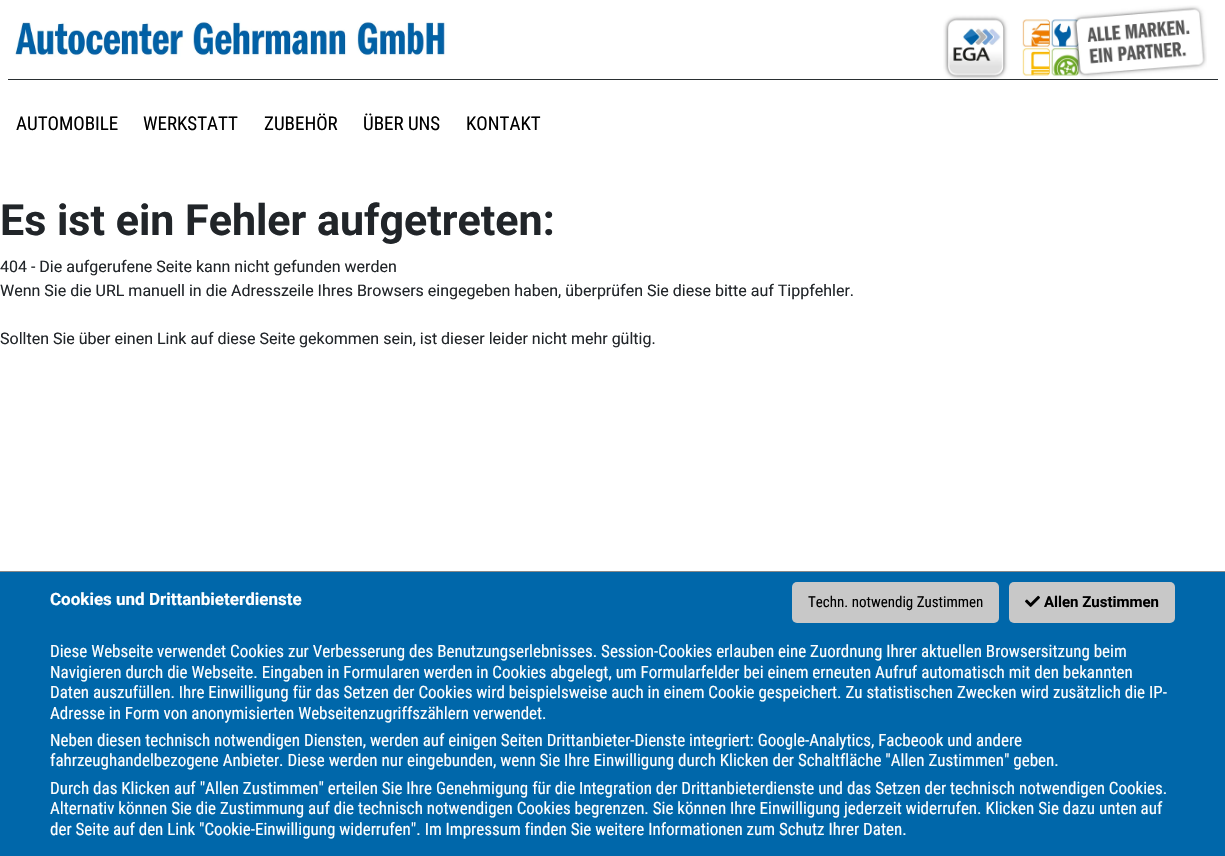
void draw(SkCanvas* canvas) {
    SkPaint paint;
    paint.setAntiAlias(true);
    canvas->clear(0xFFFFFFFF);
    canvas->drawImageRect(SkImages::DeferredFromEncodedData(SkData::MakeFromFileName("img1.png")), SkRect::MakeXYWH(14, 21, 433, 36), SkSamplingOptions());
    canvas->drawImageRect(SkImages::DeferredFromEncodedData(SkData::MakeFromFileName("img2.png")), SkRect::MakeXYWH(943, 5, 264, 74), SkSamplingOptions());
    paint.setColor(0xFF2A2F32);
    canvas->drawRect(SkRect::MakeXYWH(8, 79, 1210, 1), paint);
    SkFont font1(fontMgr->matchFamilyStyle("Roboto Condensed", SkFontStyle::Normal()), 19);
    font1.setSubpixel(true);
    paint.setColor(0xFF000000);
    canvas->drawString("AUTOMOBILE", 16, 130, font1, paint);
    canvas->drawString("WERKSTATT", 143, 130, font1, paint);
    canvas->drawString("ZUBEHÖR", 264, 130, font1, paint);
    canvas->drawString("ÜBER UNS", 363, 130, font1, paint);
    canvas->drawString("KONTAKT", 466, 130, font1, paint);
    SkFont font2(fontMgr->matchFamilyStyle("Roboto", SkFontStyle::Bold()), 43);
    font2.setSubpixel(true);
    paint.setColor(0xFF212529);
    canvas->drawString("Es ist ein Fehler aufgetreten:", 0, 235, font2, paint);
    SkFont font3(fontMgr->matchFamilyStyle("Roboto", SkFontStyle::Normal()), 16);
    font3.setSubpixel(true);
    canvas->drawString("404 - Die aufgerufene Seite kann nicht gefunden werden", 0, 272, font3, paint);
    canvas->drawString("Wenn Sie die URL manuell in die Adresszeile Ihres Browsers eingegeben haben, überprüfen Sie diese bitte auf Tippfehler.", 0, 296, font3, paint);
    canvas->drawString("Sollten Sie über einen Link auf diese Seite gekommen sein, ist dieser leider nicht mehr gültig.", 0, 344, font3, paint);
    paint.setColor(0xFF0067AA);
    canvas->drawRect(SkRect::MakeXYWH(0, 572, 1225, 284), paint);
    paint.setColor(0xFF888888);
    canvas->drawRect(SkRect::MakeXYWH(0, 571, 1225, 1), paint);
    SkFont font4(fontMgr->matchFamilyStyle("Roboto", SkFontStyle::Bold()), 17);
    font4.setSubpixel(true);
    paint.setColor(0xFFFFFFFF);
    canvas->drawString("Cookies und Drittanbieterdienste", 50, 605, font4, paint);
    paint.setColor(0xFFC8C8C8);
    canvas->drawRoundRect(SkRect::MakeXYWH(792, 582, 207, 41), 5, 5, paint);
    SkFont font5(fontMgr->matchFamilyStyle("Roboto Condensed", SkFontStyle::Normal()), 15);
    font5.setSubpixel(true);
    paint.setColor(0xFF000000);
    canvas->drawString("Techn. notwendig Zustimmen", 808, 607, font5, paint);
    paint.setColor(0xFFC8C8C8);
    canvas->drawRoundRect(SkRect::MakeXYWH(1009, 582, 166, 41), 5, 5, paint);
    canvas->drawImageRect(SkImages::DeferredFromEncodedData(SkData::MakeFromFileName("img3.png")), SkRect::MakeXYWH(1025, 595, 15, 12), SkSamplingOptions());
    SkFont font6(fontMgr->matchFamilyStyle("Roboto", SkFontStyle::Bold()), 15);
    font6.setSubpixel(true);
    paint.setColor(0xFF000000);
    canvas->drawString("Allen Zustimmen", 1044, 607, font6, paint);
    SkFont font7(fontMgr->matchFamilyStyle("Roboto Condensed", SkFontStyle::Normal()), 17);
    font7.setSubpixel(true);
    paint.setColor(0xFFFFFFFF);
    canvas->drawString("Diese Webseite verwendet Cookies zur Verbesserung des Benutzungserlebnisses. Session-Cookies erlauben eine Zuordnung Ihrer aktuellen Browsersitzung beim", 50, 657, font7, paint);
    canvas->drawString("Navigieren durch die Webseite. Eingaben in Formularen werden in Cookies abgelegt, um Formularfelder bei einem erneuten Aufruf automatisch mit den bekannten", 50, 678, font7, paint);
    canvas->drawString("Daten auszufüllen. Ihre Einwilligung für das Setzen der Cookies wird beispielsweise auch in einem Cookie gespeichert. Zu statistischen Zwecken wird zusätzlich die IP-", 50, 698, font7, paint);
    canvas->drawString("Adresse in Form von anonymisierten Webseitenzugriffszählern verwendet.", 50, 719, font7, paint);
    canvas->drawString("Neben diesen technisch notwendigen Diensten, werden auf einigen Seiten Drittanbieter-Dienste integriert: Google-Analytics, Facbeook und andere", 50, 746, font7, paint);
    canvas->drawString("fahrzeughandelbezogene Anbieter. Diese werden nur eingebunden, wenn Sie Ihre Einwilligung durch Klicken der Schaltfläche \"Allen Zustimmen\" geben.", 50, 766, font7, paint);
    canvas->drawString("Durch das Klicken auf \"Allen Zustimmen\" erteilen Sie Ihre Genehmigung für die Integration der Drittanbieterdienste und das Setzen der technisch notwendigen Cookies.", 50, 794, font7, paint);
    canvas->drawString("Alternativ können Sie die Zustimmung auf die technisch notwendigen Cookies begrenzen. Sie können Ihre Einwilligung jederzeit widerrufen. Klicken Sie dazu unten auf", 50, 814, font7, paint);
    canvas->drawString("der Seite auf den Link \"Cookie-Einwilligung widerrufen\". Im Impressum finden Sie weitere Informationen zum Schutz Ihrer Daten.", 50, 835, font7, paint);
}
